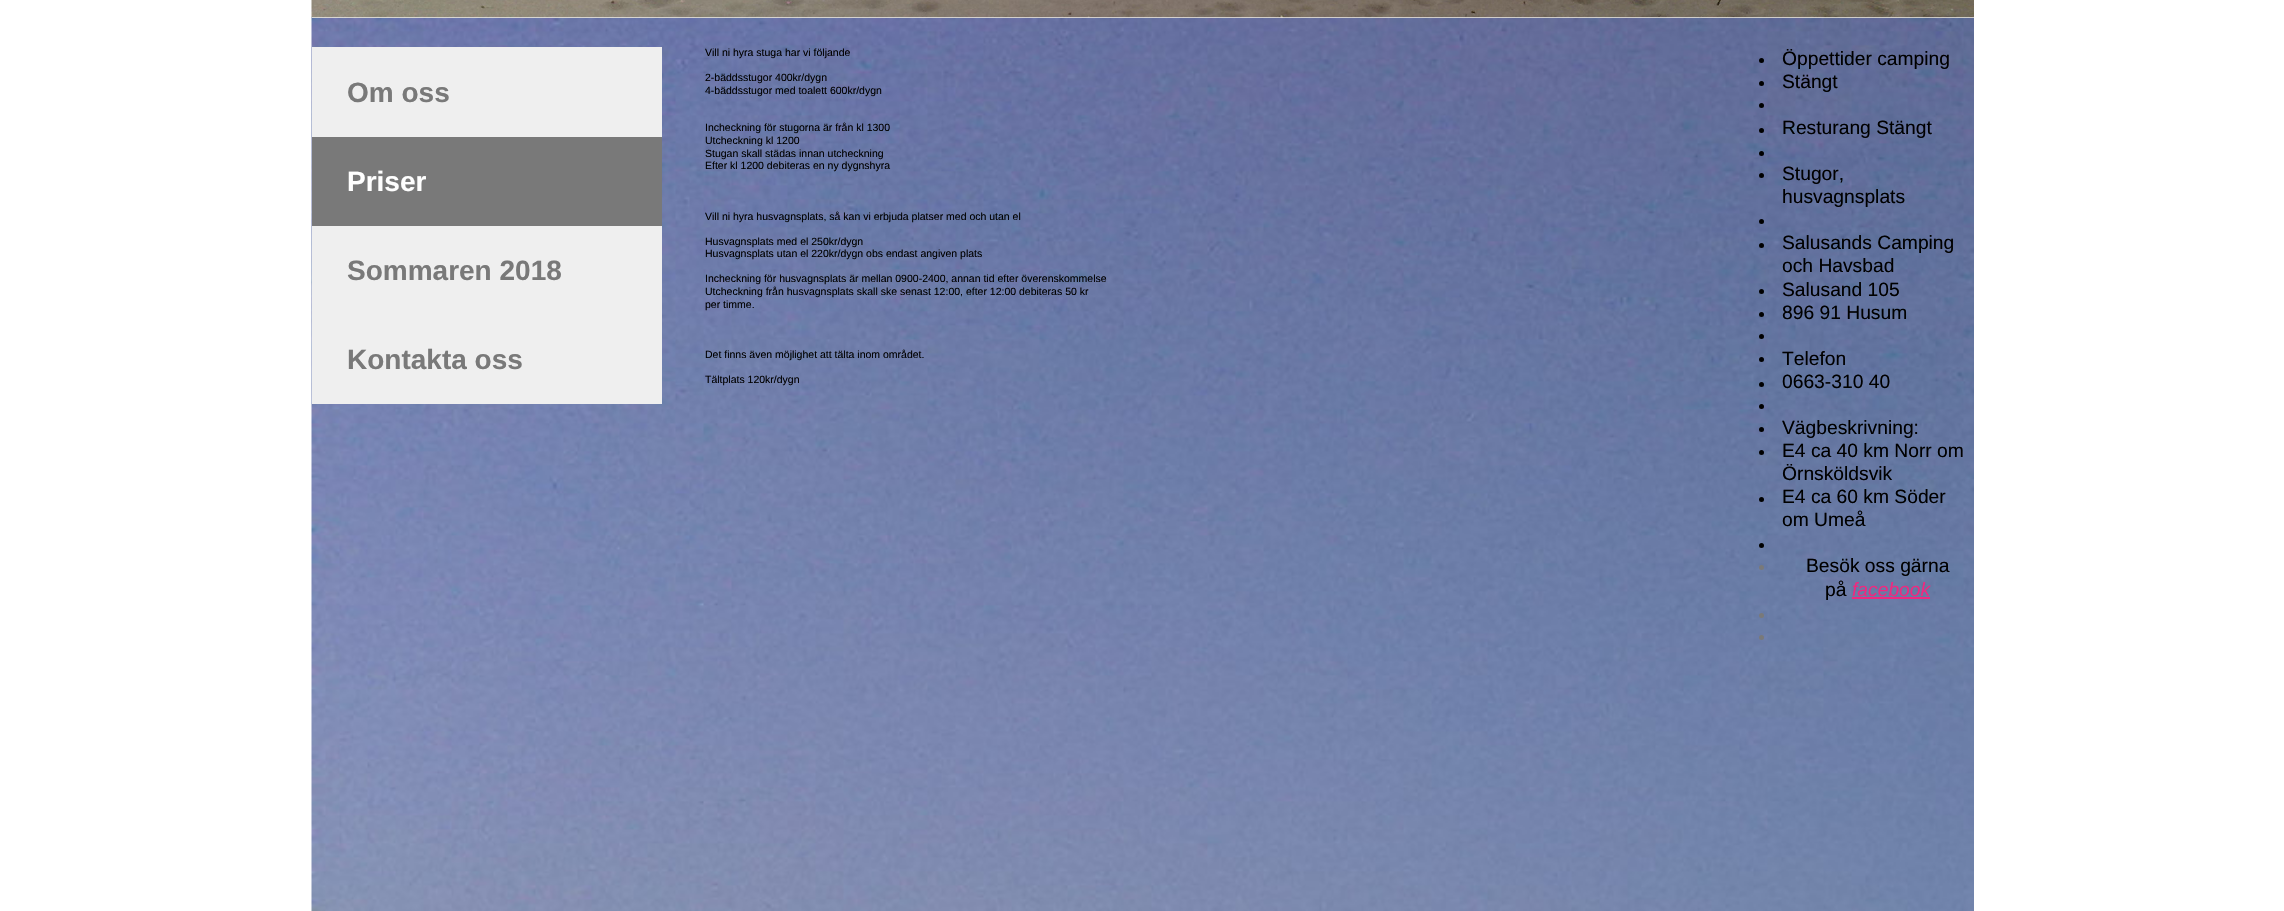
void draw(SkCanvas* canvas) {
    SkPaint paint;
    paint.setAntiAlias(true);
    canvas->clear(0xFFFFFFFF);
    canvas->drawImageRect(SkImages::DeferredFromEncodedData(SkData::MakeFromFileName("img2.png")), SkRect::MakeXYWH(311, 17, 1663, 894), SkSamplingOptions());
    paint.setColor(0xFFEFEFEF);
    canvas->drawRect(SkRect::MakeXYWH(312, 17, 1662, 1), paint);
    canvas->drawImageRect(SkImages::DeferredFromEncodedData(SkData::MakeFromFileName("img1.png")), SkRect::MakeXYWH(311, 0, 1663, 18), SkSamplingOptions());
    canvas->drawRect(SkRect::MakeXYWH(312, 47, 350, 90), paint);
    SkFont font1(fontMgr->matchFamilyStyle("Liberation Sans", SkFontStyle::Bold()), 28);
    font1.setSubpixel(true);
    paint.setColor(0xFF797979);
    canvas->drawString("Om oss", 347, 102, font1, paint);
    canvas->drawRect(SkRect::MakeXYWH(312, 137, 350, 89), paint);
    paint.setColor(0xFFFFFFFF);
    canvas->drawString("Priser", 347, 191, font1, paint);
    paint.setColor(0xFFEFEFEF);
    canvas->drawRect(SkRect::MakeXYWH(312, 226, 350, 178), paint);
    paint.setColor(0xFF797979);
    canvas->drawString("Sommaren 2018", 347, 280, font1, paint);
    canvas->drawString("Kontakta oss", 347, 369, font1, paint);
    SkFont font2(fontMgr->matchFamilyStyle("Liberation Sans", SkFontStyle::Normal()), 10.5f);
    font2.setSubpixel(true);
    paint.setColor(0xFF000000);
    canvas->drawString("Vill ni hyra stuga har vi följande", 705, 56, font2, paint);
    canvas->drawString("2-bäddsstugor 400kr/dygn", 705, 81, font2, paint);
    canvas->drawString("4-bäddsstugor med toalett 600kr/dygn", 705, 94, font2, paint);
    canvas->drawString("Incheckning för stugorna är från kl 1300", 705, 131, font2, paint);
    canvas->drawString("Utcheckning kl 1200", 705, 144, font2, paint);
    canvas->drawString("Stugan skall städas innan utcheckning", 705, 157, font2, paint);
    canvas->drawString("Efter kl 1200 debiteras en ny dygnshyra", 705, 169, font2, paint);
    canvas->drawString("Vill ni hyra husvagnsplats, så kan vi erbjuda platser med och utan el", 705, 220, font2, paint);
    canvas->drawString("Husvagnsplats med el 250kr/dygn", 705, 245, font2, paint);
    canvas->drawString("Husvagnsplats utan el 220kr/dygn obs endast angiven plats", 705, 257, font2, paint);
    canvas->drawString("Incheckning för husvagnsplats är mellan 0900-2400, annan tid efter överenskommelse", 705, 282, font2, paint);
    canvas->drawString("Utcheckning från husvagnsplats skall ske senast 12:00, efter 12:00 debiteras 50 kr", 705, 295, font2, paint);
    canvas->drawString("per timme.", 705, 308, font2, paint);
    canvas->drawString("Det finns även möjlighet att tälta inom området.", 705, 358, font2, paint);
    canvas->drawString("Tältplats 120kr/dygn", 705, 383, font2, paint);
    canvas->drawCircle(1761.5f, 60.5f, 2.5f, paint);
    SkFont font3(fontMgr->matchFamilyStyle("Liberation Sans", SkFontStyle::Normal()), 19.25f);
    font3.setSubpixel(true);
    canvas->drawString("Öppettider camping", 1782, 65, font3, paint);
    canvas->drawCircle(1761.5f, 83.5f, 2.5f, paint);
    canvas->drawString("Stängt", 1782, 88, font3, paint);
    canvas->drawCircle(1761.5f, 105.5f, 2.5f, paint);
    canvas->drawCircle(1761.5f, 130.5f, 2.5f, paint);
    canvas->drawString("Resturang Stängt", 1782, 134, font3, paint);
    canvas->drawCircle(1761.5f, 153.5f, 2.5f, paint);
    canvas->drawCircle(1761.5f, 175.5f, 2.5f, paint);
    canvas->drawString("Stugor,", 1782, 180, font3, paint);
    canvas->drawString("husvagnsplats", 1782, 203, font3, paint);
    canvas->drawCircle(1761.5f, 221.5f, 2.5f, paint);
    canvas->drawCircle(1761.5f, 245.5f, 2.5f, paint);
    canvas->drawString("Salusands Camping", 1782, 249, font3, paint);
    canvas->drawString("och Havsbad", 1782, 272, font3, paint);
    canvas->drawCircle(1761.5f, 291.5f, 2.5f, paint);
    canvas->drawString("Salusand 105", 1782, 296, font3, paint);
    canvas->drawCircle(1761.5f, 314.5f, 2.5f, paint);
    canvas->drawString("896 91 Husum", 1782, 319, font3, paint);
    canvas->drawCircle(1761.5f, 336.5f, 2.5f, paint);
    canvas->drawCircle(1761.5f, 359.5f, 2.5f, paint);
    canvas->drawString("Telefon", 1782, 365, font3, paint);
    canvas->drawCircle(1761.5f, 384.5f, 2.5f, paint);
    canvas->drawString("0663-310 40", 1782, 388, font3, paint);
    canvas->drawCircle(1761.5f, 406.5f, 2.5f, paint);
    canvas->drawCircle(1761.5f, 429.5f, 2.5f, paint);
    canvas->drawString("Vägbeskrivning:", 1782, 434, font3, paint);
    canvas->drawCircle(1761.5f, 452.5f, 2.5f, paint);
    canvas->drawString("E4 ca 40 km Norr om", 1782, 457, font3, paint);
    canvas->drawString("Örnsköldsvik", 1782, 480, font3, paint);
    canvas->drawCircle(1761.5f, 499.5f, 2.5f, paint);
    canvas->drawString("E4 ca 60 km Söder", 1782, 503, font3, paint);
    canvas->drawString("om Umeå", 1782, 526, font3, paint);
    canvas->drawCircle(1761.5f, 545.5f, 2.5f, paint);
    paint.setColor(0xFF797979);
    canvas->drawCircle(1761.5f, 567.5f, 2.5f, paint);
    paint.setColor(0xFF000000);
    canvas->drawString("Besök oss gärna", 1806, 572, font3, paint);
    canvas->drawString("på", 1825, 596, font3, paint);
    SkFont font4(fontMgr->matchFamilyStyle("Liberation Sans", SkFontStyle::Italic()), 19.25f);
    font4.setSubpixel(true);
    paint.setColor(0xFFEE2980);
    canvas->drawString("facebook", 1852, 596, font4, paint);
    canvas->drawRect(SkRect::MakeXYWH(1852, 597, 78, 2), paint);
    paint.setColor(0xFF797979);
    canvas->drawCircle(1761.5f, 615.5f, 2.5f, paint);
    canvas->drawCircle(1761.5f, 637.5f, 2.5f, paint);
}
